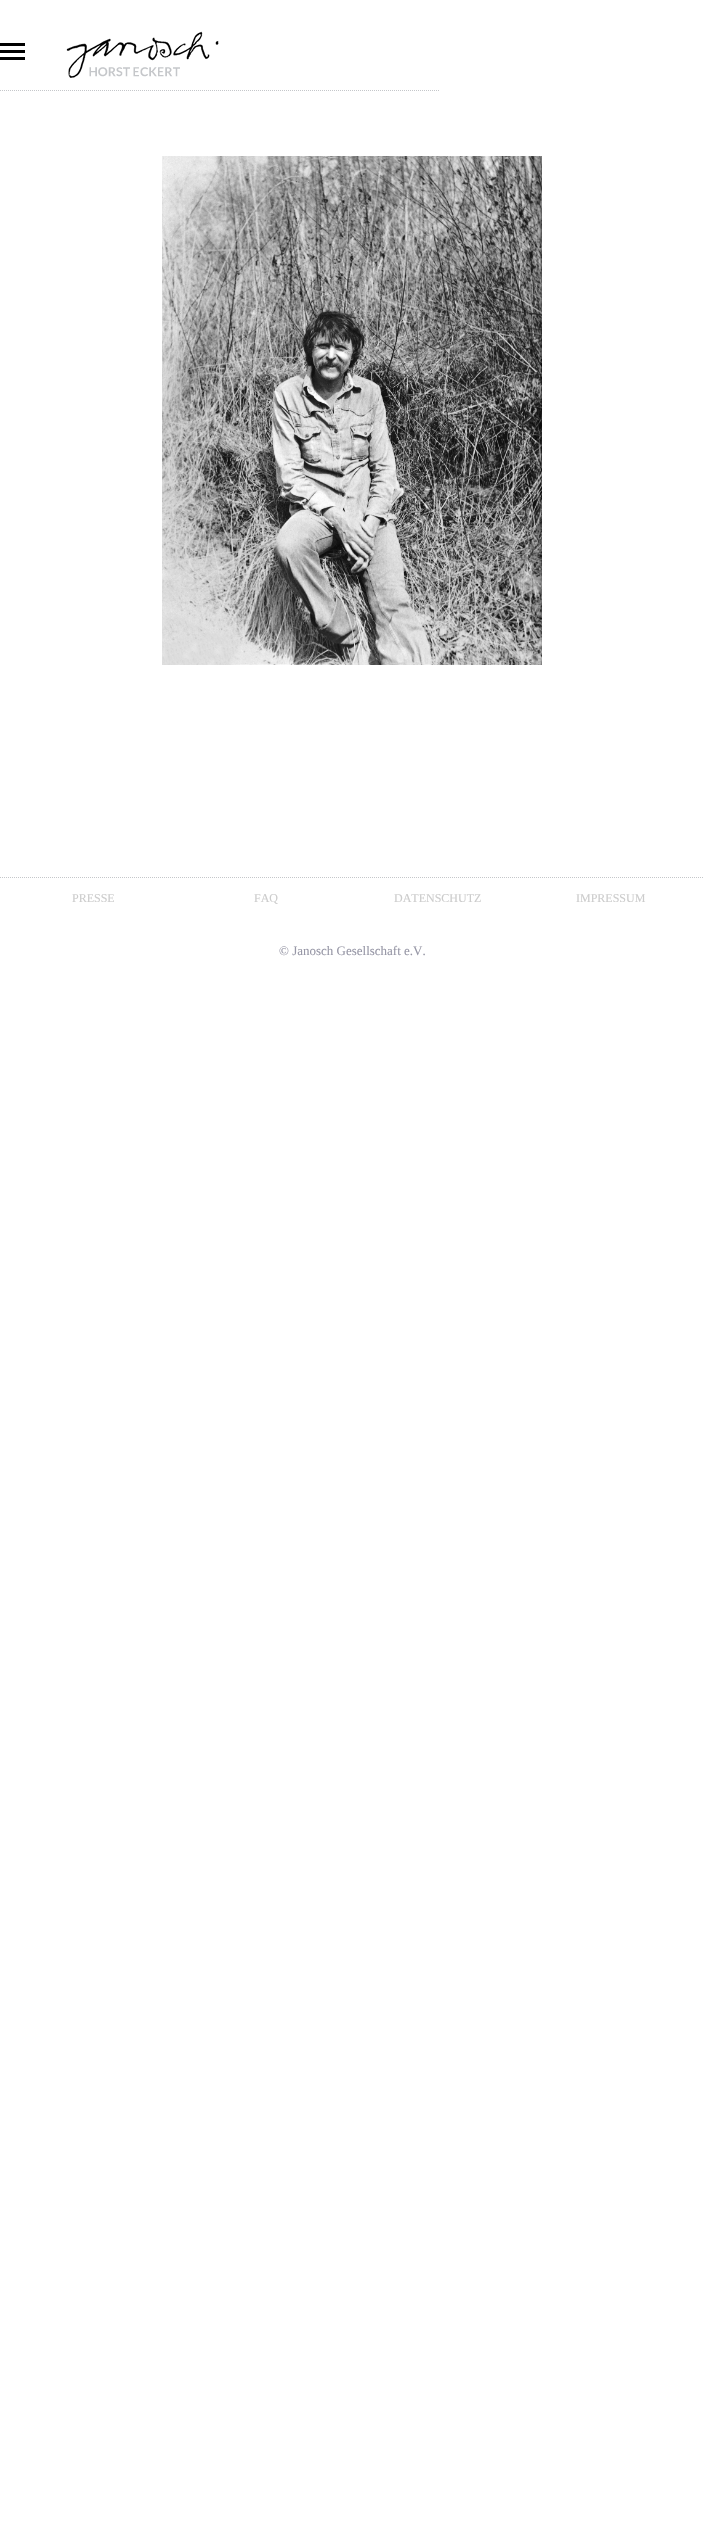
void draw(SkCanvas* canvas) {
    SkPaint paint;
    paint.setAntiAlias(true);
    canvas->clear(0xFFFFFFFF);
    paint.setStyle(SkPaint::kStroke_Style);
    paint.setStrokeWidth(1);
    paint.setColor(0xFFC5C7CA);
    paint.setPathEffect(SkDashPathEffect::Make({{1, 1}}, 0));
    canvas->drawPath(SkPathBuilder().moveTo(0, 90.5f).lineTo(440, 90.5f).detach(), paint);
    paint.setPathEffect(nullptr);
    paint.setStyle(SkPaint::kFill_Style);
    paint.setColor(0xFF000000);
    canvas->drawRect(SkRect::MakeXYWH(0, 43, 25, 3), paint);
    canvas->drawRect(SkRect::MakeXYWH(0, 50, 25, 3), paint);
    canvas->drawRect(SkRect::MakeXYWH(0, 57, 25, 3), paint);
    canvas->drawImageRect(SkImages::DeferredFromEncodedData(SkData::MakeFromFileName("img1.png")), SkRect::MakeXYWH(66, 31, 153, 47), SkSamplingOptions());
    canvas->drawImageRect(SkImages::DeferredFromEncodedData(SkData::MakeFromFileName("img2.png")), SkRect::MakeXYWH(162, 156, 380, 509), SkSamplingOptions());
    paint.setStyle(SkPaint::kStroke_Style);
    paint.setColor(0xFFC5C7CA);
    paint.setPathEffect(SkDashPathEffect::Make({{1, 1}}, 0));
    canvas->drawPath(SkPathBuilder().moveTo(0, 877.5f).lineTo(704, 877.5f).detach(), paint);
    paint.setPathEffect(nullptr);
    SkFont font1(fontMgr->matchFamilyStyle("Liberation Serif", SkFontStyle::Normal()), 12);
    font1.setSubpixel(true);
    paint.setStyle(SkPaint::kFill_Style);
    paint.setColor(0xFFCCCCCC);
    canvas->drawString("PRESSE", 72, 902, font1, paint);
    canvas->drawString("FAQ", 254, 902, font1, paint);
    canvas->drawString("DATENSCHUTZ", 394, 902, font1, paint);
    canvas->drawString("IMPRESSUM", 576, 902, font1, paint);
    SkFont font2(fontMgr->matchFamilyStyle("Liberation Serif", SkFontStyle::Normal()), 13);
    font2.setSubpixel(true);
    paint.setColor(0xFF9797A6);
    canvas->drawString("© Janosch Gesellschaft e.V.", 279, 955, font2, paint);
}
